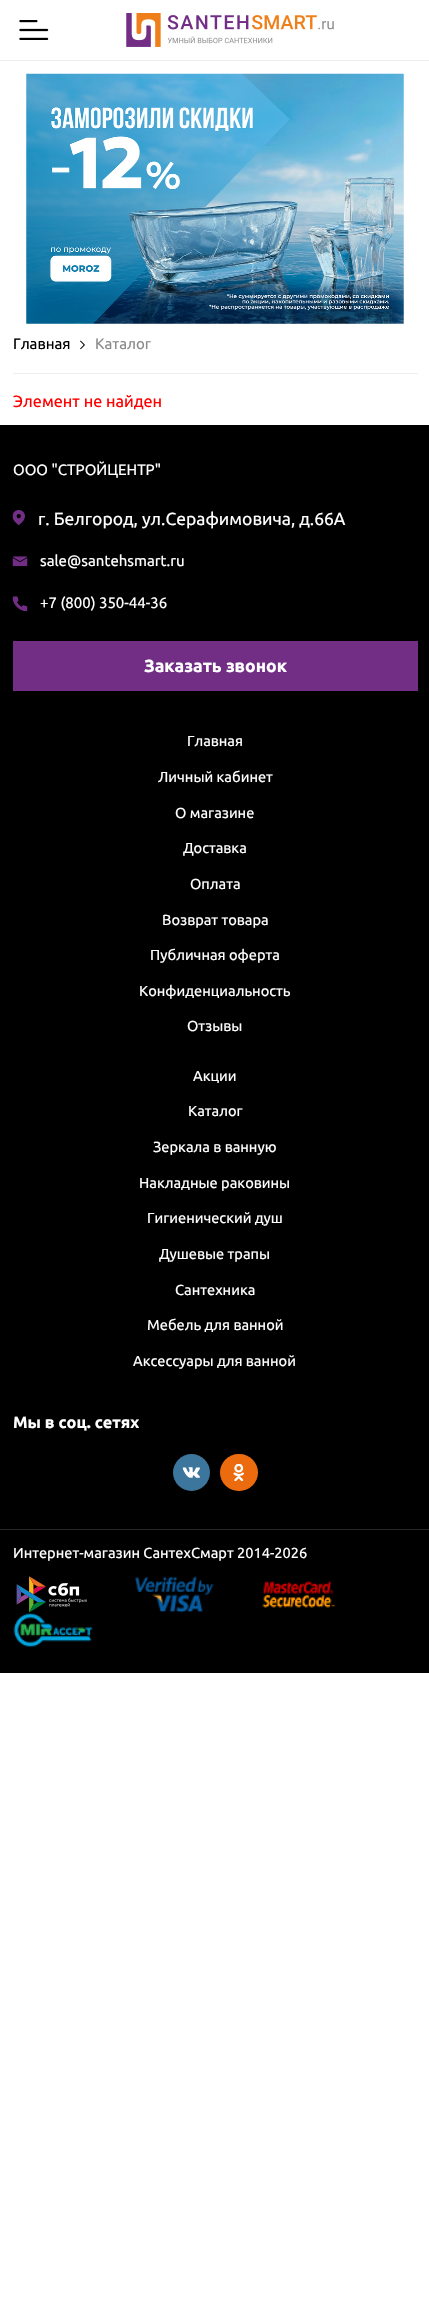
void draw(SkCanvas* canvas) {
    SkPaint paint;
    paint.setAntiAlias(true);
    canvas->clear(0xFFFFFFFF);
    paint.setColor(0xFFEEEEEE);
    canvas->drawRect(SkRect::MakeXYWH(0, 60, 429, 1), paint);
    canvas->drawImageRect(SkImages::DeferredFromEncodedData(SkData::MakeFromFileName("img1.png")), SkRect::MakeXYWH(19, 20, 30, 20), SkSamplingOptions());
    canvas->drawImageRect(SkImages::DeferredFromEncodedData(SkData::MakeFromFileName("img2.png")), SkRect::MakeXYWH(126, 13, 208, 34), SkSamplingOptions());
    canvas->drawImageRect(SkImages::DeferredFromEncodedData(SkData::MakeFromFileName("img3.png")), SkRect::MakeXYWH(26, 73, 378, 251), SkSamplingOptions());
    canvas->drawRect(SkRect::MakeXYWH(13, 373, 405, 1), paint);
    SkFont font1(fontMgr->matchFamilyStyle("Ubuntu", SkFontStyle::Normal()), 15);
    font1.setSubpixel(true);
    paint.setColor(0xFF000000);
    canvas->drawString("Главная", 13, 349, font1, paint);
    canvas->drawImageRect(SkImages::DeferredFromEncodedData(SkData::MakeFromFileName("img4.png")), SkRect::MakeXYWH(80, 340, 5, 10), SkSamplingOptions());
    paint.setColor(0xFF8B8B8B);
    canvas->drawString("Каталог", 95, 349, font1, paint);
    SkFont font2(fontMgr->matchFamilyStyle("Ubuntu", SkFontStyle::Normal()), 16.25f);
    font2.setSubpixel(true);
    paint.setColor(0xFFFF0000);
    canvas->drawString("Элемент не найден", 13, 407, font2, paint);
    paint.setColor(0xFF000000);
    canvas->drawRect(SkRect::MakeXYWH(0, 425, 429, 1248), paint);
    paint.setColor(0xFFFFFFFF);
    canvas->drawString("ООО \"СТРОЙЦЕНТР\"", 13, 475, font1, paint);
    canvas->drawImageRect(SkImages::DeferredFromEncodedData(SkData::MakeFromFileName("img5.png")), SkRect::MakeXYWH(12, 510, 13, 15), SkSamplingOptions());
    SkFont font3(fontMgr->matchFamilyStyle("Ubuntu", SkFontStyle::Normal()), 17.5f);
    font3.setSubpixel(true);
    canvas->drawString("г. Белгород, ул.Серафимовича, д.66А", 38, 525, font3, paint);
    canvas->drawImageRect(SkImages::DeferredFromEncodedData(SkData::MakeFromFileName("img6.png")), SkRect::MakeXYWH(12, 556, 16, 11), SkSamplingOptions());
    canvas->drawString("sale@santehsmart.ru", 40, 566, font1, paint);
    canvas->drawImageRect(SkImages::DeferredFromEncodedData(SkData::MakeFromFileName("img7.png")), SkRect::MakeXYWH(12, 596, 16, 16), SkSamplingOptions());
    canvas->drawString("+7 (800) 350-44-36", 40, 608, font1, paint);
    paint.setColor(0xFF722E85);
    canvas->drawRect(SkRect::MakeXYWH(13, 641, 405, 50), paint);
    SkFont font4(fontMgr->matchFamilyStyle("Ubuntu", SkFontStyle::Bold()), 17.5f);
    font4.setSubpixel(true);
    paint.setColor(0xFFFFFFFF);
    canvas->drawString("Заказать звонок", 144, 672, font4, paint);
    SkFont font5(fontMgr->matchFamilyStyle("Ubuntu", SkFontStyle::Normal()), 14.6f);
    font5.setSubpixel(true);
    canvas->drawString("Главная", 187, 746, font5, paint);
    canvas->drawString("Личный кабинет", 158, 782, font5, paint);
    canvas->drawString("О магазине", 175, 818, font5, paint);
    canvas->drawString("Доставка", 183, 853, font5, paint);
    canvas->drawString("Оплата", 190, 889, font5, paint);
    canvas->drawString("Возврат товара", 162, 925, font5, paint);
    canvas->drawString("Публичная оферта", 150, 960, font5, paint);
    canvas->drawString("Конфиденциальность", 139, 996, font5, paint);
    canvas->drawString("Отзывы", 187, 1031, font5, paint);
    canvas->drawString("Акции", 193, 1081, font5, paint);
    canvas->drawString("Каталог", 188, 1116, font5, paint);
    canvas->drawString("Зеркала в ванную", 153, 1152, font5, paint);
    canvas->drawString("Накладные раковины", 139, 1188, font5, paint);
    canvas->drawString("Гигиенический душ", 147, 1223, font5, paint);
    canvas->drawString("Душевые трапы", 159, 1259, font5, paint);
    canvas->drawString("Сантехника", 175, 1295, font5, paint);
    canvas->drawString("Мебель для ванной", 147, 1330, font5, paint);
    canvas->drawString("Аксессуары для ванной", 133, 1366, font5, paint);
    SkFont font6(fontMgr->matchFamilyStyle("Ubuntu", SkFontStyle::Bold()), 16.25f);
    font6.setSubpixel(true);
    canvas->drawString("Мы в соц. сетях", 13, 1428, font6, paint);
    paint.setColor(0xFF3D769C);
    canvas->drawCircle(191.5f, 1472.5f, 18.5f, paint);
    canvas->drawImageRect(SkImages::DeferredFromEncodedData(SkData::MakeFromFileName("img8.png")), SkRect::MakeXYWH(182, 1467, 18, 11), SkSamplingOptions());
    paint.setColor(0xFFEB6B0E);
    canvas->drawRoundRect(SkRect::MakeXYWH(220, 1454, 38, 37), 18.5f, 18.5f, paint);
    canvas->drawImageRect(SkImages::DeferredFromEncodedData(SkData::MakeFromFileName("img9.png")), SkRect::MakeXYWH(233, 1464, 11, 17), SkSamplingOptions());
    paint.setColor(0xFF272727);
    canvas->drawRect(SkRect::MakeXYWH(0, 1529, 429, 1), paint);
    paint.setColor(0xFFFFFFFF);
    canvas->drawString("Интернет-магазин СантехСмарт 2014-2026", 13, 1558, font5, paint);
    canvas->drawImageRect(SkImages::DeferredFromEncodedData(SkData::MakeFromFileName("img10.png")), SkRect::MakeXYWH(16, 1576, 71, 37), SkSamplingOptions());
    canvas->drawImageRect(SkImages::DeferredFromEncodedData(SkData::MakeFromFileName("img11.png")), SkRect::MakeXYWH(135, 1576, 79, 37), SkSamplingOptions());
    canvas->drawImageRect(SkImages::DeferredFromEncodedData(SkData::MakeFromFileName("img12.png")), SkRect::MakeXYWH(262, 1581, 74, 27), SkSamplingOptions());
    canvas->drawImageRect(SkImages::DeferredFromEncodedData(SkData::MakeFromFileName("img13.png")), SkRect::MakeXYWH(13, 1613, 80, 35), SkSamplingOptions());
}
